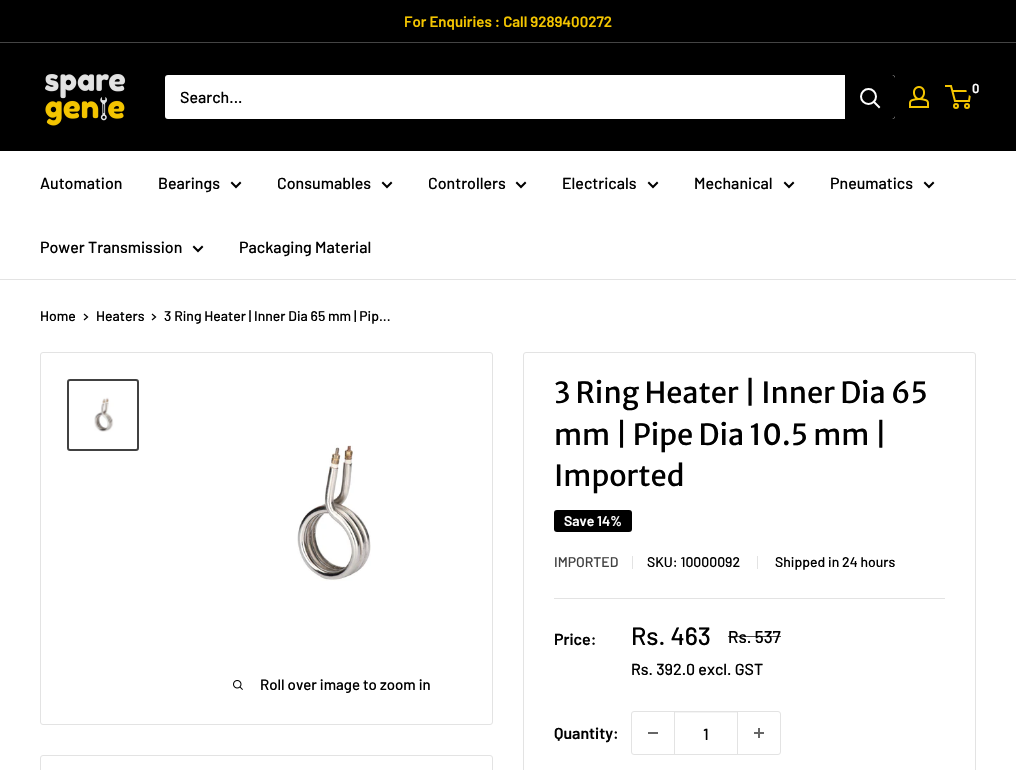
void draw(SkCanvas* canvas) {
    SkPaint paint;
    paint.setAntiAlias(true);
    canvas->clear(0xFFFFFFFF);
    paint.setColor(0xFF000000);
    canvas->drawRect(SkRect::MakeXYWH(0, 0, 1016, 42), paint);
    paint.setColor(0xFF444444);
    canvas->drawRect(SkRect::MakeXYWH(0, 42, 1016, 1), paint);
    SkFont font1(fontMgr->matchFamilyStyle("Barlow", SkFontStyle(600, SkFontStyle::kNormal_Width, SkFontStyle::kUpright_Slant)), 15);
    font1.setSubpixel(true);
    paint.setColor(0xFFF4C500);
    canvas->drawString("For Enquiries : Call 9289400272", 404, 27, font1, paint);
    paint.setColor(0xFF000000);
    canvas->drawRect(SkRect::MakeXYWH(0, 43, 1016, 108), paint);
    canvas->drawImageRect(SkImages::DeferredFromEncodedData(SkData::MakeFromFileName("img1.png")), SkRect::MakeXYWH(45, 74, 81, 52), SkSamplingOptions());
    canvas->drawImageRect(SkImages::DeferredFromEncodedData(SkData::MakeFromFileName("img2.png")), SkRect::MakeXYWH(909, 86, 20, 22), SkSamplingOptions());
    paint.setStyle(SkPaint::kStroke_Style);
    paint.setStrokeWidth(2);
    paint.setColor(0xFFF4C500);
    canvas->drawCircle(956, 106, 2, paint);
    canvas->drawCircle(967, 106, 2, paint);
    canvas->drawPath(SkPathBuilder().moveTo(952.5f, 91).lineTo(970.5f, 91).lineTo(969, 101).lineTo(955, 101).lineTo(951, 86).lineTo(945, 86).detach(), paint);
    paint.setStyle(SkPaint::kFill_Style);
    paint.setColor(0xFF000000);
    canvas->drawCircle(976, 88, 10, paint);
    SkFont font2(fontMgr->matchFamilyStyle("Barlow", SkFontStyle(600, SkFontStyle::kNormal_Width, SkFontStyle::kUpright_Slant)), 13);
    font2.setSubpixel(true);
    paint.setColor(0xFFFFFFFF);
    canvas->drawString("0", 972, 93, font2, paint);
    canvas->drawRoundRect(SkRect::MakeXYWH(165, 75, 730, 44), 3, 3, paint);
    SkFont font3(fontMgr->matchFamilyStyle("Barlow", SkFontStyle(500, SkFontStyle::kNormal_Width, SkFontStyle::kUpright_Slant)), 16);
    font3.setSubpixel(true);
    paint.setColor(0xFF000000);
    canvas->drawString("Search...", 180, 103, font3, paint);
    canvas->drawPath(SkPathBuilder().moveTo(845, 75).lineTo(892, 75).cubicTo(893.5f, 75, 895, 76.5f, 895, 78).lineTo(895, 116).cubicTo(895, 117.5f, 893.5f, 119, 892, 119).lineTo(845, 119).close().detach(), paint);
    paint.setStyle(SkPaint::kStroke_Style);
    paint.setStrokeCap(SkPaint::kSquare_Cap);
    paint.setColor(0xFFFFFFFF);
    canvas->drawPath(SkPathBuilder().moveTo(879, 107).lineTo(874, 102).detach(), paint);
    paint.setStrokeCap(SkPaint::kButt_Cap);
    canvas->drawCircle(868.5f, 96.5f, 7.5f, paint);
    paint.setStyle(SkPaint::kFill_Style);
    paint.setColor(0xFFE3E3E3);
    canvas->drawRect(SkRect::MakeXYWH(0, 279, 1016, 1), paint);
    paint.setColor(0xFF000000);
    canvas->drawString("Automation", 40, 189, font3, paint);
    canvas->drawString("Bearings", 158, 189, font3, paint);
    paint.setStyle(SkPaint::kStroke_Style);
    paint.setStrokeCap(SkPaint::kSquare_Cap);
    canvas->drawPath(SkPathBuilder().moveTo(240, 183).lineTo(236, 187).lineTo(232, 183).detach(), paint);
    paint.setStyle(SkPaint::kFill_Style);
    canvas->drawString("Consumables", 277, 189, font3, paint);
    paint.setStyle(SkPaint::kStroke_Style);
    canvas->drawPath(SkPathBuilder().moveTo(391, 183).lineTo(387, 187).lineTo(383, 183).detach(), paint);
    paint.setStyle(SkPaint::kFill_Style);
    canvas->drawString("Controllers", 428, 189, font3, paint);
    paint.setStyle(SkPaint::kStroke_Style);
    canvas->drawPath(SkPathBuilder().moveTo(525, 183).lineTo(521, 187).lineTo(517, 183).detach(), paint);
    paint.setStyle(SkPaint::kFill_Style);
    canvas->drawString("Electricals", 562, 189, font3, paint);
    paint.setStyle(SkPaint::kStroke_Style);
    canvas->drawPath(SkPathBuilder().moveTo(657, 183).lineTo(653, 187).lineTo(649, 183).detach(), paint);
    paint.setStyle(SkPaint::kFill_Style);
    canvas->drawString("Mechanical", 694, 189, font3, paint);
    paint.setStyle(SkPaint::kStroke_Style);
    canvas->drawPath(SkPathBuilder().moveTo(793, 183).lineTo(789, 187).lineTo(785, 183).detach(), paint);
    paint.setStyle(SkPaint::kFill_Style);
    canvas->drawString("Pneumatics", 830, 189, font3, paint);
    paint.setStyle(SkPaint::kStroke_Style);
    canvas->drawPath(SkPathBuilder().moveTo(933, 183).lineTo(929, 187).lineTo(925, 183).detach(), paint);
    paint.setStyle(SkPaint::kFill_Style);
    canvas->drawString("Power Transmission", 40, 253, font3, paint);
    paint.setStyle(SkPaint::kStroke_Style);
    canvas->drawPath(SkPathBuilder().moveTo(202, 247).lineTo(198, 251).lineTo(194, 247).detach(), paint);
    paint.setStyle(SkPaint::kFill_Style);
    canvas->drawString("Packaging Material", 239, 253, font3, paint);
    SkFont font4(fontMgr->matchFamilyStyle("Barlow", SkFontStyle(500, SkFontStyle::kNormal_Width, SkFontStyle::kUpright_Slant)), 14);
    font4.setSubpixel(true);
    canvas->drawString("Home", 40, 321, font4, paint);
    paint.setStyle(SkPaint::kStroke_Style);
    paint.setStrokeWidth(1.3f);
    canvas->drawPath(SkPathBuilder().moveTo(84.5f, 314.5f).lineTo(87.5f, 317).lineTo(84.5f, 319.5f).detach(), paint);
    paint.setStyle(SkPaint::kFill_Style);
    canvas->drawString("Heaters", 96, 321, font4, paint);
    paint.setStyle(SkPaint::kStroke_Style);
    canvas->drawPath(SkPathBuilder().moveTo(152.5f, 314.5f).lineTo(155.5f, 317).lineTo(152.5f, 319.5f).detach(), paint);
    paint.setStyle(SkPaint::kFill_Style);
    canvas->drawString("3 Ring Heater | Inner Dia 65 mm | Pip...", 164, 321, font4, paint);
    paint.setStyle(SkPaint::kStroke_Style);
    paint.setStrokeWidth(1);
    paint.setStrokeCap(SkPaint::kButt_Cap);
    paint.setColor(0xFFE3E3E3);
    canvas->drawRoundRect(SkRect::MakeXYWH(40.5f, 352.5f, 452, 372), 2.5f, 2.5f, paint);
    paint.setStrokeWidth(2);
    paint.setColor(0xFF414141);
    canvas->drawRoundRect(SkRect::MakeXYWH(68, 380, 70, 70), 2, 2, paint);
    canvas->drawImageRect(SkImages::DeferredFromEncodedData(SkData::MakeFromFileName("img3.png")), SkRect::MakeXYWH(94, 397, 20, 35), SkSamplingOptions());
    canvas->drawImageRect(SkImages::DeferredFromEncodedData(SkData::MakeFromFileName("img4.png")), SkRect::MakeXYWH(297, 445, 74, 136), SkSamplingOptions());
    canvas->drawImageRect(SkImages::DeferredFromEncodedData(SkData::MakeFromFileName("img5.png")), SkRect::MakeXYWH(233, 680, 10, 10), SkSamplingOptions());
    SkFont font5(fontMgr->matchFamilyStyle("Barlow", SkFontStyle(500, SkFontStyle::kNormal_Width, SkFontStyle::kUpright_Slant)), 15);
    font5.setSubpixel(true);
    paint.setStyle(SkPaint::kFill_Style);
    paint.setColor(0xFF000000);
    canvas->drawString("Roll over image to zoom in", 260, 690, font5, paint);
    paint.setStyle(SkPaint::kStroke_Style);
    paint.setStrokeWidth(1);
    paint.setColor(0xFFE3E3E3);
    canvas->drawRoundRect(SkRect::MakeXYWH(523.5f, 352.5f, 452, 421), 2.5f, 2.5f, paint);
    SkFont font6(fontMgr->matchFamilyStyle("Merriweather Sans", SkFontStyle::Normal()), 29);
    font6.setSubpixel(true);
    paint.setStyle(SkPaint::kFill_Style);
    paint.setColor(0xFF000000);
    canvas->drawString("3 Ring Heater | Inner Dia 65", 554, 403, font6, paint);
    canvas->drawString("mm | Pipe Dia 10.5 mm |", 554, 445, font6, paint);
    canvas->drawString("Imported", 554, 486, font6, paint);
    canvas->drawRoundRect(SkRect::MakeXYWH(554, 510, 78, 22), 3, 3, paint);
    SkFont font7(fontMgr->matchFamilyStyle("Barlow", SkFontStyle(600, SkFontStyle::kNormal_Width, SkFontStyle::kUpright_Slant)), 14);
    font7.setSubpixel(true);
    paint.setColor(0xFFFFFFFF);
    canvas->drawString("Save 14%", 564, 526, font7, paint);
    paint.setColor(0xFF414141);
    canvas->drawString("IMPORTED", 554, 567, font4, paint);
    paint.setColor(0xFFE3E3E3);
    canvas->drawRect(SkRect::MakeXYWH(632, 556, 1, 13), paint);
    paint.setColor(0xFF000000);
    canvas->drawString("SKU: 10000092", 647, 567, font4, paint);
    paint.setColor(0xFFE3E3E3);
    canvas->drawRect(SkRect::MakeXYWH(757, 556, 1, 13), paint);
    paint.setColor(0xFF000000);
    canvas->drawString("Shipped in 24 hours", 775, 567, font4, paint);
    paint.setColor(0xFFE3E3E3);
    canvas->drawRect(SkRect::MakeXYWH(554, 598, 391, 1), paint);
    SkFont font8(fontMgr->matchFamilyStyle("Barlow", SkFontStyle(600, SkFontStyle::kNormal_Width, SkFontStyle::kUpright_Slant)), 16);
    font8.setSubpixel(true);
    paint.setColor(0xFF000000);
    canvas->drawString("Price:", 554, 645, font8, paint);
    SkFont font9(fontMgr->matchFamilyStyle("Barlow", SkFontStyle(500, SkFontStyle::kNormal_Width, SkFontStyle::kUpright_Slant)), 25);
    font9.setSubpixel(true);
    canvas->drawString("Rs. 463", 631, 645, font9, paint);
    SkFont font10(fontMgr->matchFamilyStyle("Barlow", SkFontStyle(500, SkFontStyle::kNormal_Width, SkFontStyle::kUpright_Slant)), 17);
    font10.setSubpixel(true);
    canvas->drawString("Rs. 537", 728, 643, font10, paint);
    paint.setColor(0xB3000000);
    canvas->drawRect(SkRect::MakeXYWH(728, 636, 53, 1), paint);
    paint.setColor(0xFF000000);
    canvas->drawString("Rs. 392.0 excl. GST", 631, 675, font3, paint);
    canvas->drawString("Quantity:", 554, 739, font8, paint);
    paint.setStyle(SkPaint::kStroke_Style);
    paint.setColor(0xFFE3E3E3);
    canvas->drawRoundRect(SkRect::MakeXYWH(631.5f, 711.5f, 149, 43), 2.5f, 2.5f, paint);
    paint.setStyle(SkPaint::kFill_Style);
    paint.setColor(0xFF666666);
    canvas->drawRect(SkRect::MakeXYWH(648, 732, 10, 2), paint);
    paint.setColor(0xFFF4F4F4);
    canvas->drawRect(SkRect::MakeXYWH(675, 712, 62, 1), paint);
    paint.setColor(0xFFE3E3E3);
    canvas->drawRect(SkRect::MakeXYWH(737, 712, 1, 42), paint);
    canvas->drawRect(SkRect::MakeXYWH(674, 712, 1, 42), paint);
    paint.setColor(0xFF000000);
    canvas->drawString("1", 703, 740, font3, paint);
    canvas->drawImageRect(SkImages::DeferredFromEncodedData(SkData::MakeFromFileName("img6.png")), SkRect::MakeXYWH(754, 728, 10, 10), SkSamplingOptions());
    paint.setStyle(SkPaint::kStroke_Style);
    paint.setColor(0xFFE3E3E3);
    canvas->drawRoundRect(SkRect::MakeXYWH(40.5f, 755.5f, 452, 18), 2.5f, 2.5f, paint);
}
